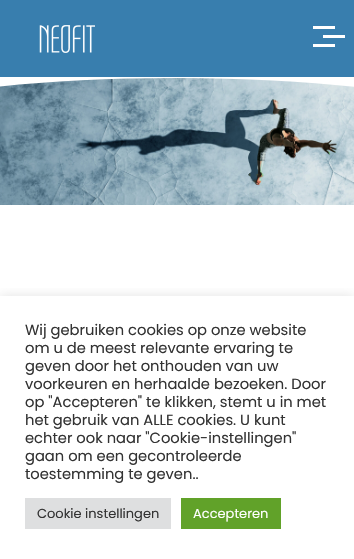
void draw(SkCanvas* canvas) {
    SkPaint paint;
    paint.setAntiAlias(true);
    canvas->clear(0xFFFFFFFF);
    canvas->drawImageRect(SkImages::DeferredFromEncodedData(SkData::MakeFromFileName("img2.png")), SkRect::MakeXYWH(0, 78, 354, 127), SkSamplingOptions());
    paint.setColor(0xFFFFFFFF);
    canvas->drawPath(SkPathBuilder().moveTo(177, 78).cubicTo(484, 79, 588, 142, 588, 158).lineTo(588, 76).lineTo(-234, 76).lineTo(-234, 157).cubicTo(-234, 142, -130, 78, 177, 78).close().detach(), paint);
    paint.setColor(0xFF387EAE);
    canvas->drawRect(SkRect::MakeXYWH(0, 0, 354, 77), paint);
    canvas->drawImageRect(SkImages::DeferredFromEncodedData(SkData::MakeFromFileName("img1.png")), SkRect::MakeXYWH(39, 25, 56, 28), SkSamplingOptions());
    paint.setColor(0xFFFFFFFF);
    canvas->drawRect(SkRect::MakeXYWH(313, 26, 22, 3), paint);
    canvas->drawRect(SkRect::MakeXYWH(323, 35, 22, 3), paint);
    canvas->drawRect(SkRect::MakeXYWH(313, 44, 22, 3), paint);
    canvas->save();
    canvas->clipRect(SkRect::MakeXYWH(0, 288, 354, 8));
    paint.setColor(0x4DACABAB);
    paint.setMaskFilter(SkMaskFilter::MakeBlur(kNormal_SkBlurStyle, 5));
    canvas->drawRect(SkRect::MakeXYWH(0, 295, 354, 263), paint);
    paint.setMaskFilter(nullptr);
    canvas->restore();
    SkFont font1(fontMgr->matchFamilyStyle("Poppins", SkFontStyle::Normal()), 14.7f);
    font1.setSubpixel(true);
    paint.setColor(0xFF333333);
    canvas->drawString("Wij gebruiken cookies op onze website", 25, 335, font1, paint);
    canvas->drawString("om u de meest relevante ervaring te", 25, 353, font1, paint);
    canvas->drawString("geven door het onthouden van uw", 25, 371, font1, paint);
    canvas->drawString("voorkeuren en herhaalde bezoeken. Door", 25, 389, font1, paint);
    canvas->drawString("op \"Accepteren\" te klikken, stemt u in met", 25, 407, font1, paint);
    canvas->drawString("het gebruik van ALLE cookies. U kunt", 25, 425, font1, paint);
    canvas->drawString("echter ook naar \"Cookie-instellingen\"", 25, 443, font1, paint);
    canvas->drawString("gaan om een gecontroleerde", 25, 461, font1, paint);
    canvas->drawString("toestemming te geven..", 25, 479, font1, paint);
    paint.setColor(0xFFDEDFE0);
    canvas->drawRect(SkRect::MakeXYWH(25, 498, 146, 31), paint);
    SkFont font2(fontMgr->matchFamilyStyle("Poppins", SkFontStyle::Normal()), 13);
    font2.setSubpixel(true);
    paint.setColor(0xFF333333);
    canvas->drawString("Cookie instellingen", 37, 518, font2, paint);
    paint.setColor(0xFF61A229);
    canvas->drawRect(SkRect::MakeXYWH(181, 498, 100, 31), paint);
    paint.setColor(0xFFFFFFFF);
    canvas->drawString("Accepteren", 193, 518, font2, paint);
}
